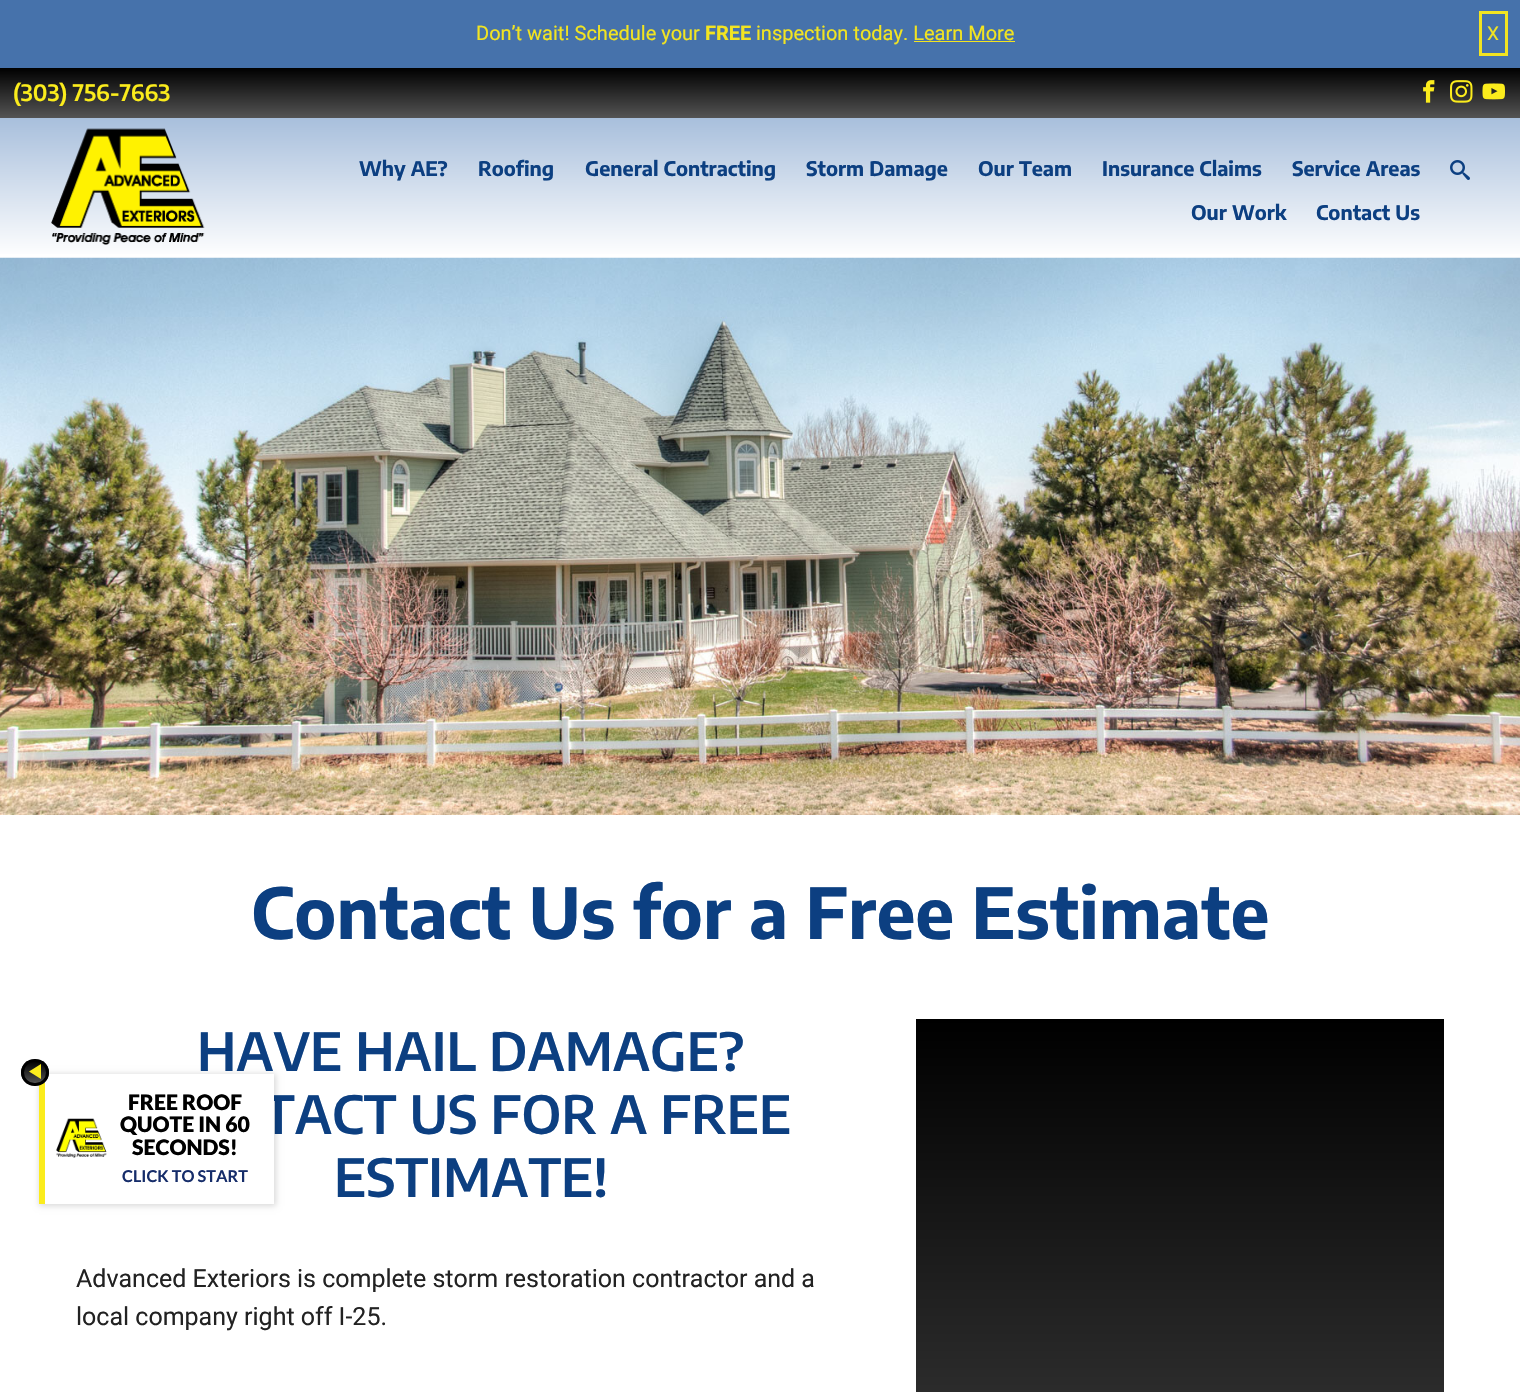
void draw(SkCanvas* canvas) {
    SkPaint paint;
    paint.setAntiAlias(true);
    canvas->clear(0xFFFFFFFF);
    paint.setColor(0xFF4672AB);
    canvas->drawRect(SkRect::MakeXYWH(0, 0, 1520, 68), paint);
    SkFont font1(fontMgr->matchFamilyStyle("Roboto", SkFontStyle::Normal()), 20);
    font1.setSubpixel(true);
    paint.setColor(0xFFF2E421);
    canvas->drawString("Don’t wait! Schedule your", 476, 40, font1, paint);
    SkFont font2(fontMgr->matchFamilyStyle("Roboto", SkFontStyle::Bold()), 20);
    font2.setSubpixel(true);
    canvas->drawString("FREE", 705, 40, font2, paint);
    canvas->drawString("inspection today. Learn More", 756, 40, font1, paint);
    canvas->drawRect(SkRect::MakeXYWH(914, 41, 101, 1), paint);
    paint.setStyle(SkPaint::kStroke_Style);
    paint.setStrokeWidth(3);
    canvas->drawRect(SkRect::MakeXYWH(1480.5f, 12.5f, 26, 42), paint);
    SkFont font3(fontMgr->matchFamilyStyle("Roboto", SkFontStyle::Normal()), 19);
    font3.setSubpixel(true);
    paint.setStyle(SkPaint::kFill_Style);
    canvas->drawString("X", 1487, 40, font3, paint);
    {
        const SkColor colors[] = {0xFF545454, 0xFF000000};
        const float stops[] = {0, 1};
        const SkPoint ends[] = {{760, 118}, {760, 68}};
        paint.setShader(SkGradientShader::MakeLinear(ends, colors, stops, 2, SkTileMode::kClamp));
        paint.setAlpha(255);
    }
    canvas->drawRect(SkRect::MakeXYWH(0, 68, 1520, 50), paint);
    SkFont font4(fontMgr->matchFamilyStyle("Encode Sans Condensed", SkFontStyle(600, SkFontStyle::kNormal_Width, SkFontStyle::kUpright_Slant)), 22.5f);
    font4.setSubpixel(true);
    paint.setShader(nullptr);
    paint.setColor(0xFFFBEC1C);
    canvas->drawString("(303) 756-7663", 13, 101, font4, paint);
    canvas->drawImageRect(SkImages::DeferredFromEncodedData(SkData::MakeFromFileName("img1.png")), SkRect::MakeXYWH(1423, 80, 12, 23), SkSamplingOptions());
    canvas->drawImageRect(SkImages::DeferredFromEncodedData(SkData::MakeFromFileName("img2.png")), SkRect::MakeXYWH(1450, 80, 23, 23), SkSamplingOptions());
    canvas->drawImageRect(SkImages::DeferredFromEncodedData(SkData::MakeFromFileName("img3.png")), SkRect::MakeXYWH(1482, 83, 23, 17), SkSamplingOptions());
    {
        const SkColor colors[] = {0xFFFFFFFF, 0xFFA8BFDC};
        const float stops[] = {0, 1};
        const SkPoint ends[] = {{760, 258}, {760, 118}};
        paint.setShader(SkGradientShader::MakeLinear(ends, colors, stops, 2, SkTileMode::kClamp));
        paint.setAlpha(255);
    }
    canvas->drawRect(SkRect::MakeXYWH(0, 118, 1520, 136), paint);
    canvas->drawImageRect(SkImages::DeferredFromEncodedData(SkData::MakeFromFileName("img4.png")), SkRect::MakeXYWH(51, 128, 154, 117), SkSamplingOptions());
    SkFont font5(fontMgr->matchFamilyStyle("Encode Sans Condensed", SkFontStyle::Bold()), 20);
    font5.setSubpixel(true);
    paint.setShader(nullptr);
    paint.setColor(0xFF0C3F81);
    canvas->drawString("Why AE?", 359, 176, font5, paint);
    canvas->drawString("Roofing", 478, 176, font5, paint);
    canvas->drawString("General Contracting", 585, 176, font5, paint);
    canvas->drawString("Storm Damage", 806, 176, font5, paint);
    canvas->drawString("Our Team", 978, 176, font5, paint);
    canvas->drawString("Insurance Claims", 1102, 176, font5, paint);
    canvas->drawString("Service Areas", 1292, 176, font5, paint);
    canvas->drawString("Our Work", 1191, 220, font5, paint);
    canvas->drawString("Contact Us", 1316, 220, font5, paint);
    canvas->drawImageRect(SkImages::DeferredFromEncodedData(SkData::MakeFromFileName("img5.png")), SkRect::MakeXYWH(1450, 160, 20, 20), SkSamplingOptions());
    canvas->drawImageRect(SkImages::DeferredFromEncodedData(SkData::MakeFromFileName("img6.png")), SkRect::MakeXYWH(0, 257, 1520, 558), SkSamplingOptions());
    SkFont font6(fontMgr->matchFamilyStyle("Encode Sans Condensed", SkFontStyle::Bold()), 70);
    font6.setSubpixel(true);
    canvas->drawString("Contact Us for a Free Estimate", 251, 939, font6, paint);
    SkFont font7(fontMgr->matchFamilyStyle("Encode Sans Condensed", SkFontStyle(600, SkFontStyle::kNormal_Width, SkFontStyle::kUpright_Slant)), 52.5f);
    font7.setSubpixel(true);
    canvas->drawString("HAVE HAIL DAMAGE?", 197, 1071, font7, paint);
    canvas->drawString("TACT US FOR A FREE", 262, 1134, font7, paint);
    canvas->drawString("ESTIMATE!", 334, 1197, font7, paint);
    SkFont font8(fontMgr->matchFamilyStyle("Roboto", SkFontStyle::Normal()), 25);
    font8.setSubpixel(true);
    paint.setColor(0xFF222222);
    canvas->drawString("Advanced Exteriors is complete storm restoration contractor and a", 76, 1287, font8, paint);
    canvas->drawString("local company right off I-25.", 76, 1325, font8, paint);
    {
        const SkColor colors[] = {0xFF545454, 0xFF000000};
        const float stops[] = {0, 1};
        const SkPoint ends[] = {{1180, 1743}, {1180, 1019}};
        paint.setShader(SkGradientShader::MakeLinear(ends, colors, stops, 2, SkTileMode::kClamp));
        paint.setAlpha(255);
    }
    canvas->drawRect(SkRect::MakeXYWH(916, 1019, 528, 373), paint);
    paint.setShader(nullptr);
    paint.setColor(0x26000000);
    paint.setMaskFilter(SkMaskFilter::MakeBlur(kNormal_SkBlurStyle, 3));
    canvas->drawRect(SkRect::MakeXYWH(39, 1074, 237, 132), paint);
    paint.setMaskFilter(nullptr);
    paint.setColor(0xFFFFFFFF);
    canvas->drawRect(SkRect::MakeXYWH(45, 1074, 229, 130), paint);
    paint.setColor(0xFFFBEC1C);
    canvas->drawRect(SkRect::MakeXYWH(39, 1074, 6, 130), paint);
    canvas->save();
    canvas->clipPath(SkPathBuilder().moveTo(34.5f, 1059).lineTo(35.5f, 1059).cubicTo(43, 1059, 49, 1065, 49, 1072.5f).cubicTo(49, 1080, 43, 1086, 35.5f, 1086).lineTo(34.5f, 1086).cubicTo(27, 1086, 21, 1080, 21, 1072.5f).cubicTo(21, 1065, 27, 1059, 34.5f, 1059).close().detach(), true);
    {
        const SkColor colors[] = {0xFF545454, 0xFF000000};
        const float stops[] = {0, 1};
        const SkPoint ends[] = {{35, 1084}, {35, 1061}};
        paint.setShader(SkGradientShader::MakeLinear(ends, colors, stops, 2, SkTileMode::kClamp));
        paint.setAlpha(255);
    }
    canvas->drawRect(SkRect::MakeXYWH(21, 1061, 28, 23), paint);
    canvas->restore();
    paint.setStyle(SkPaint::kStroke_Style);
    paint.setShader(nullptr);
    paint.setColor(0xFF000000);
    canvas->drawRoundRect(SkRect::MakeXYWH(22.5f, 1060.5f, 25, 24), 12, 12, paint);
    paint.setStyle(SkPaint::kFill_Style);
    paint.setColor(0xFFFBEC1C);
    canvas->drawPath(SkPathBuilder().moveTo(41, 1079).lineTo(29, 1071.5f).lineTo(41, 1064).close().detach(), paint);
    canvas->drawImageRect(SkImages::DeferredFromEncodedData(SkData::MakeFromFileName("img7.png")), SkRect::MakeXYWH(56, 1118, 51, 40), SkSamplingOptions());
    SkFont font9(fontMgr->matchFamilyStyle("Lato", SkFontStyle(900, SkFontStyle::kNormal_Width, SkFontStyle::kUpright_Slant)), 21.25f);
    font9.setSubpixel(true);
    paint.setColor(0xFF000000);
    canvas->drawString("FREE ROOF", 128, 1110, font9, paint);
    canvas->drawString("QUOTE IN 60", 120, 1132, font9, paint);
    canvas->drawString("SECONDS!", 132, 1155, font9, paint);
    SkFont font10(fontMgr->matchFamilyStyle("Lato", SkFontStyle::Bold()), 16.25f);
    font10.setSubpixel(true);
    paint.setColor(0xFF162D6A);
    canvas->drawString("CLICK TO START", 122, 1182, font10, paint);
}
